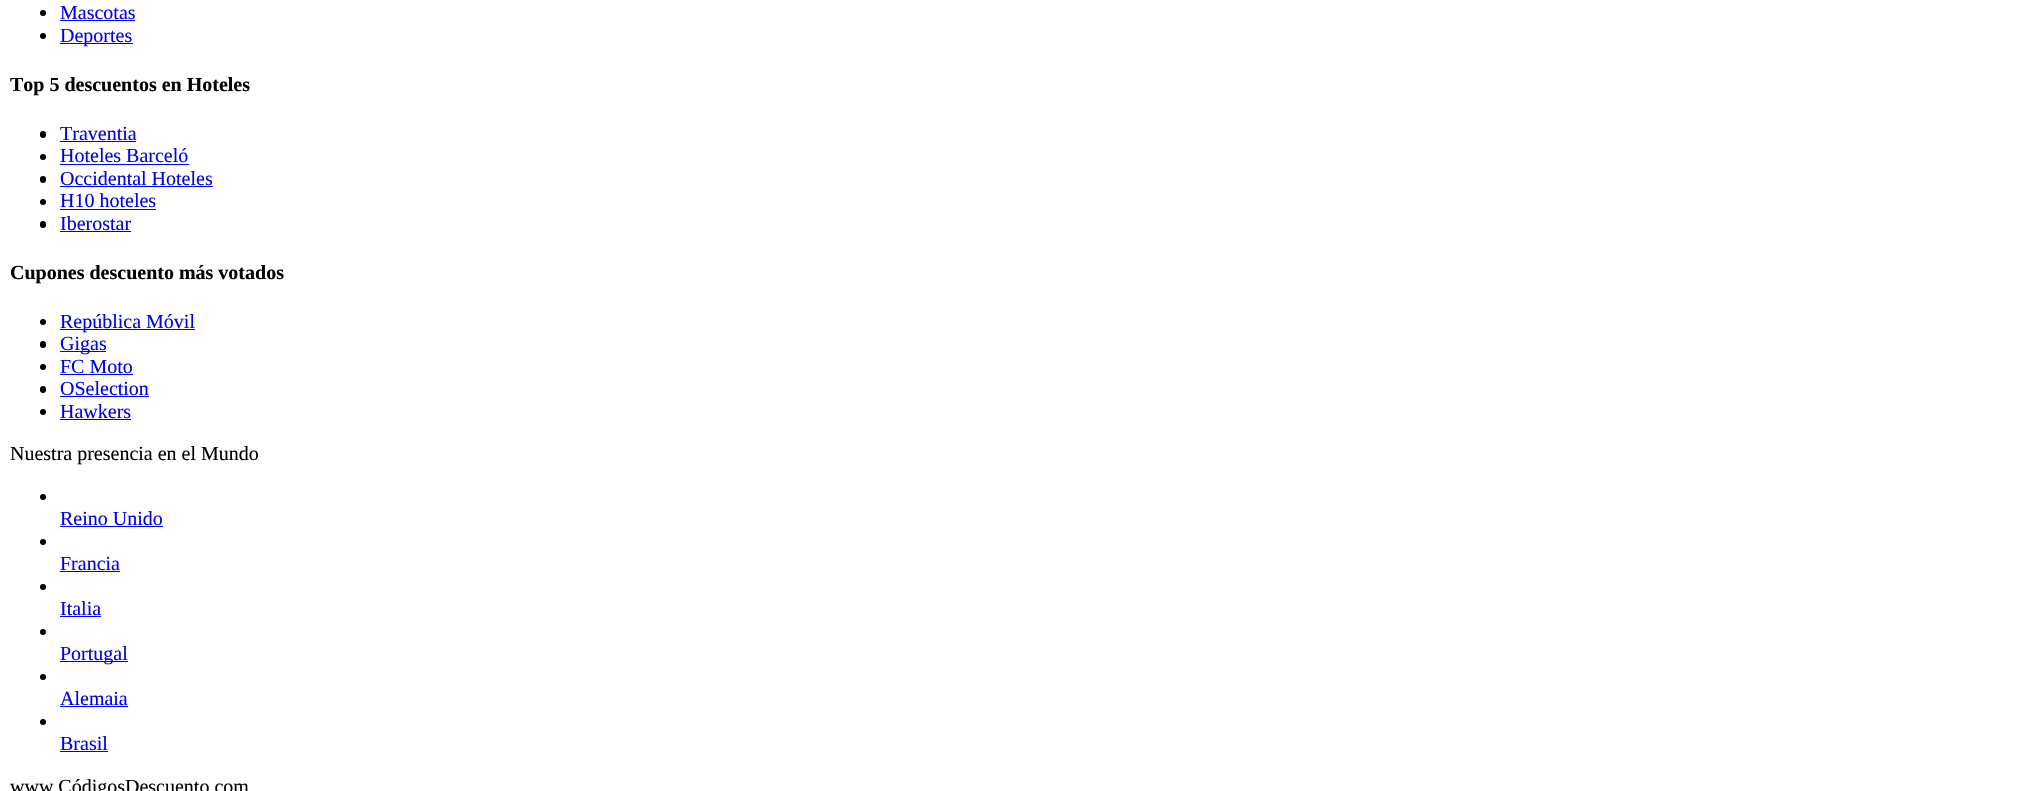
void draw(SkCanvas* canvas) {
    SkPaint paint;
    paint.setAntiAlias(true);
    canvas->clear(0xFFFFFFFF);
    paint.setColor(0xFF000000);
    canvas->drawCircle(43, 13, 3, paint);
    SkFont font1(fontMgr->matchFamilyStyle("Liberation Serif", SkFontStyle::Normal()), 20);
    font1.setSubpixel(true);
    paint.setColor(0xFF0000EE);
    canvas->drawString("Mascotas", 60, 19, font1, paint);
    canvas->drawRect(SkRect::MakeXYWH(60, 20, 75, 1), paint);
    paint.setColor(0xFF000000);
    canvas->drawCircle(43, 36, 3, paint);
    paint.setColor(0xFF0000EE);
    canvas->drawRect(SkRect::MakeXYWH(60, 43, 73, 1), paint);
    canvas->drawString("Deportes", 60, 42, font1, paint);
    SkFont font2(fontMgr->matchFamilyStyle("Liberation Serif", SkFontStyle::Bold()), 20);
    font2.setSubpixel(true);
    paint.setColor(0xFF000000);
    canvas->drawString("Top 5 descuentos en Hoteles", 10, 91, font2, paint);
    canvas->drawRoundRect(SkRect::MakeXYWH(40, 131, 6, 7), 3, 3, paint);
    paint.setColor(0xFF0000EE);
    canvas->drawString("Traventia", 60, 140, font1, paint);
    canvas->drawRect(SkRect::MakeXYWH(60, 141, 76, 1), paint);
    paint.setColor(0xFF000000);
    canvas->drawCircle(43, 157, 3, paint);
    paint.setColor(0xFF0000EE);
    canvas->drawString("Hoteles Barceló", 60, 162, font1, paint);
    canvas->drawRect(SkRect::MakeXYWH(60, 164, 129, 1), paint);
    paint.setColor(0xFF000000);
    canvas->drawRoundRect(SkRect::MakeXYWH(40, 176, 6, 7), 3, 3, paint);
    paint.setColor(0xFF0000EE);
    canvas->drawString("Occidental Hoteles", 60, 185, font1, paint);
    canvas->drawRect(SkRect::MakeXYWH(60, 186, 153, 1), paint);
    paint.setColor(0xFF000000);
    canvas->drawCircle(43, 202, 3, paint);
    paint.setColor(0xFF0000EE);
    canvas->drawString("H10 hoteles", 60, 207, font1, paint);
    canvas->drawRect(SkRect::MakeXYWH(60, 209, 96, 1), paint);
    paint.setColor(0xFF000000);
    canvas->drawRoundRect(SkRect::MakeXYWH(40, 221, 6, 7), 3, 3, paint);
    paint.setColor(0xFF0000EE);
    canvas->drawString("Iberostar", 60, 230, font1, paint);
    canvas->drawRect(SkRect::MakeXYWH(60, 231, 71, 1), paint);
    paint.setColor(0xFF000000);
    canvas->drawString("Cupones descuento más votados", 10, 279, font2, paint);
    canvas->drawCircle(43, 322, 3, paint);
    paint.setColor(0xFF0000EE);
    canvas->drawRect(SkRect::MakeXYWH(60, 329, 135, 1), paint);
    canvas->drawString("República Móvil", 60, 328, font1, paint);
    paint.setColor(0xFF000000);
    canvas->drawRoundRect(SkRect::MakeXYWH(40, 341, 6, 7), 3, 3, paint);
    paint.setColor(0xFF0000EE);
    canvas->drawRect(SkRect::MakeXYWH(60, 351, 46, 1), paint);
    canvas->drawString("Gigas", 60, 350, font1, paint);
    paint.setColor(0xFF000000);
    canvas->drawCircle(43, 367, 3, paint);
    paint.setColor(0xFF0000EE);
    canvas->drawString("FC Moto", 60, 373, font1, paint);
    canvas->drawRect(SkRect::MakeXYWH(60, 374, 73, 1), paint);
    paint.setColor(0xFF000000);
    canvas->drawRoundRect(SkRect::MakeXYWH(40, 386, 6, 7), 3, 3, paint);
    paint.setColor(0xFF0000EE);
    canvas->drawString("OSelection", 60, 395, font1, paint);
    canvas->drawRect(SkRect::MakeXYWH(60, 396, 89, 1), paint);
    paint.setColor(0xFF000000);
    canvas->drawCircle(43, 412, 3, paint);
    paint.setColor(0xFF0000EE);
    canvas->drawString("Hawkers", 60, 418, font1, paint);
    canvas->drawRect(SkRect::MakeXYWH(60, 419, 71, 1), paint);
    paint.setColor(0xFF000000);
    canvas->drawString("Nuestra presencia en el Mundo", 10, 460, font1, paint);
    canvas->drawCircle(43, 497, 3, paint);
    paint.setColor(0xFF0000EE);
    canvas->drawString("Reino Unido", 60, 525, font1, paint);
    canvas->drawRect(SkRect::MakeXYWH(60, 526, 103, 1), paint);
    paint.setColor(0xFF000000);
    canvas->drawCircle(43, 542, 3, paint);
    paint.setColor(0xFF0000EE);
    canvas->drawString("Francia", 60, 570, font1, paint);
    canvas->drawRect(SkRect::MakeXYWH(60, 571, 60, 1), paint);
    paint.setColor(0xFF000000);
    canvas->drawCircle(43, 587, 3, paint);
    paint.setColor(0xFF0000EE);
    canvas->drawString("Italia", 60, 615, font1, paint);
    canvas->drawRect(SkRect::MakeXYWH(60, 616, 41, 1), paint);
    paint.setColor(0xFF000000);
    canvas->drawCircle(43, 632, 3, paint);
    paint.setColor(0xFF0000EE);
    canvas->drawRect(SkRect::MakeXYWH(60, 661, 68, 1), paint);
    canvas->drawString("Portugal", 60, 660, font1, paint);
    paint.setColor(0xFF000000);
    canvas->drawCircle(43, 677, 3, paint);
    paint.setColor(0xFF0000EE);
    canvas->drawString("Alemaia", 60, 705, font1, paint);
    canvas->drawRect(SkRect::MakeXYWH(60, 706, 68, 1), paint);
    paint.setColor(0xFF000000);
    canvas->drawCircle(43, 722, 3, paint);
    paint.setColor(0xFF0000EE);
    canvas->drawString("Brasil", 60, 750, font1, paint);
    canvas->drawRect(SkRect::MakeXYWH(60, 751, 48, 1), paint);
    paint.setColor(0xFF000000);
    canvas->drawString("www.CódigosDescuento.com", 10, 793, font1, paint);
}
